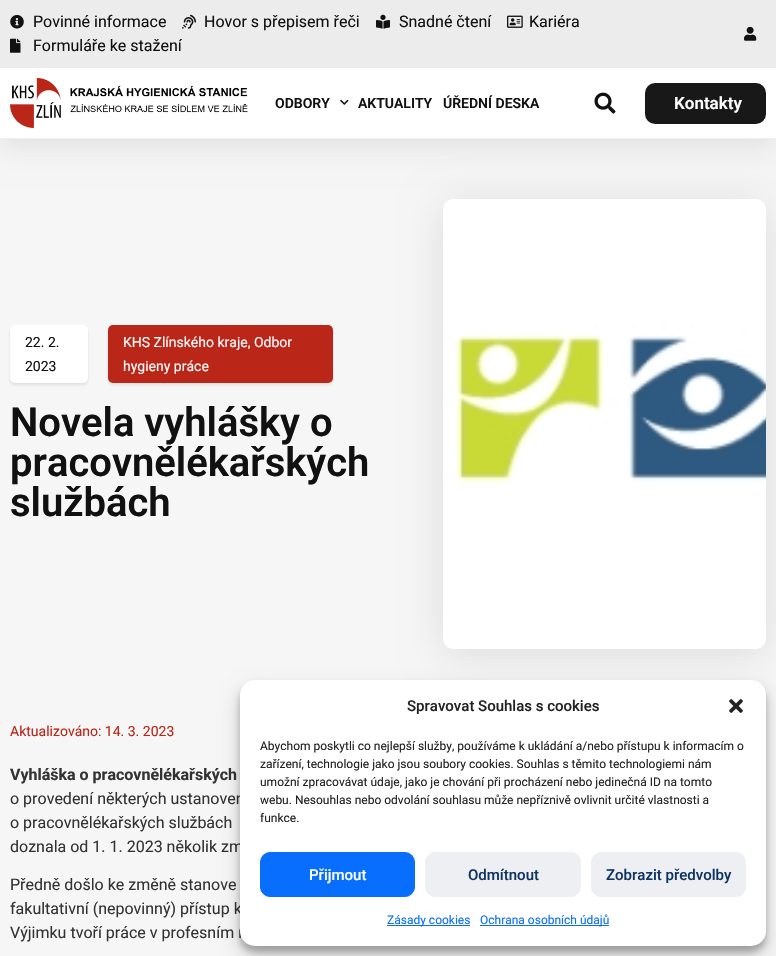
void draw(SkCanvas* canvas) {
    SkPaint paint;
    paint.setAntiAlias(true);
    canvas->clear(0xFFF6F6F6);
    paint.setColor(0x1A000000);
    paint.setMaskFilter(SkMaskFilter::MakeBlur(kNormal_SkBlurStyle, 15));
    canvas->drawRect(SkRect::MakeXYWH(0, 5, 776, 139), paint);
    paint.setMaskFilter(nullptr);
    paint.setColor(0xFFECECEC);
    canvas->drawRect(SkRect::MakeXYWH(0, 0, 776, 68), paint);
    canvas->drawImageRect(SkImages::DeferredFromEncodedData(SkData::MakeFromFileName("img1.png")), SkRect::MakeXYWH(10, 15, 14, 14), SkSamplingOptions());
    SkFont font1(fontMgr->matchFamilyStyle("Roboto", SkFontStyle::Normal()), 16);
    font1.setSubpixel(true);
    paint.setColor(0xFF111111);
    canvas->drawString("Povinné informace", 33, 27, font1, paint);
    canvas->drawImageRect(SkImages::DeferredFromEncodedData(SkData::MakeFromFileName("img2.png")), SkRect::MakeXYWH(182, 14, 14, 15), SkSamplingOptions());
    canvas->drawString("Hovor s přepisem řeči", 204, 27, font1, paint);
    canvas->drawImageRect(SkImages::DeferredFromEncodedData(SkData::MakeFromFileName("img3.png")), SkRect::MakeXYWH(376, 14, 14, 15), SkSamplingOptions());
    canvas->drawString("Snadné čtení", 399, 27, font1, paint);
    canvas->drawImageRect(SkImages::DeferredFromEncodedData(SkData::MakeFromFileName("img4.png")), SkRect::MakeXYWH(507, 15, 16, 13), SkSamplingOptions());
    canvas->drawString("Kariéra", 529, 27, font1, paint);
    canvas->drawImageRect(SkImages::DeferredFromEncodedData(SkData::MakeFromFileName("img5.png")), SkRect::MakeXYWH(10, 38, 11, 15), SkSamplingOptions());
    canvas->drawString("Formuláře ke stažení", 33, 51, font1, paint);
    canvas->drawImageRect(SkImages::DeferredFromEncodedData(SkData::MakeFromFileName("img6.png")), SkRect::MakeXYWH(744, 27, 13, 14), SkSamplingOptions());
    paint.setColor(0xFFFFFFFF);
    canvas->drawRect(SkRect::MakeXYWH(0, 68, 776, 70), paint);
    paint.setColor(0xFFEDEFF2);
    canvas->drawRect(SkRect::MakeXYWH(0, 138, 776, 1), paint);
    canvas->drawImageRect(SkImages::DeferredFromEncodedData(SkData::MakeFromFileName("img7.png")), SkRect::MakeXYWH(10, 78, 238, 50), SkSamplingOptions());
    SkFont font2(fontMgr->matchFamilyStyle("Roboto", SkFontStyle(600, SkFontStyle::kNormal_Width, SkFontStyle::kUpright_Slant)), 14);
    font2.setSubpixel(true);
    paint.setColor(0xFF111111);
    canvas->drawString("ODBORY", 275, 108, font2, paint);
    canvas->drawImageRect(SkImages::DeferredFromEncodedData(SkData::MakeFromFileName("img8.png")), SkRect::MakeXYWH(340, 99, 9, 6), SkSamplingOptions());
    canvas->drawString("AKTUALITY", 358, 108, font2, paint);
    canvas->drawString("ÚŘEDNÍ DESKA", 443, 108, font2, paint);
    canvas->drawImageRect(SkImages::DeferredFromEncodedData(SkData::MakeFromFileName("img9.png")), SkRect::MakeXYWH(594, 92, 22, 22), SkSamplingOptions());
    paint.setColor(0xFF181818);
    canvas->drawRoundRect(SkRect::MakeXYWH(645, 83, 121, 41), 10, 10, paint);
    SkFont font3(fontMgr->matchFamilyStyle("Roboto", SkFontStyle(600, SkFontStyle::kNormal_Width, SkFontStyle::kUpright_Slant)), 17);
    font3.setSubpixel(true);
    paint.setColor(0xFFFFFFFF);
    canvas->drawString("Kontakty", 674, 109, font3, paint);
    paint.setColor(0x1A0F0F0F);
    paint.setMaskFilter(SkMaskFilter::MakeBlur(kNormal_SkBlurStyle, 1.5f));
    canvas->drawRoundRect(SkRect::MakeXYWH(10, 327, 78, 58), 5, 5, paint);
    paint.setMaskFilter(nullptr);
    paint.setColor(0xFFFFFFFF);
    canvas->drawRoundRect(SkRect::MakeXYWH(10, 325, 78, 58), 5, 5, paint);
    SkFont font4(fontMgr->matchFamilyStyle("Roboto", SkFontStyle::Normal()), 14);
    font4.setSubpixel(true);
    paint.setColor(0xFF111111);
    canvas->drawString("22. 2.", 25, 347, font4, paint);
    canvas->drawString("2023", 25, 371, font4, paint);
    paint.setColor(0x1A0F0F0F);
    paint.setMaskFilter(SkMaskFilter::MakeBlur(kNormal_SkBlurStyle, 1.5f));
    canvas->drawRoundRect(SkRect::MakeXYWH(108, 327, 225, 58), 5, 5, paint);
    paint.setMaskFilter(nullptr);
    paint.setColor(0xFFBA2618);
    canvas->drawRoundRect(SkRect::MakeXYWH(108, 325, 225, 58), 5, 5, paint);
    paint.setColor(0xFFFFFFFF);
    canvas->drawString("KHS Zlínského kraje, Odbor", 123, 347, font4, paint);
    canvas->drawString("hygieny práce", 123, 371, font4, paint);
    SkFont font5(fontMgr->matchFamilyStyle("Roboto", SkFontStyle(600, SkFontStyle::kNormal_Width, SkFontStyle::kUpright_Slant)), 40);
    font5.setSubpixel(true);
    paint.setColor(0xFF111111);
    canvas->drawString("Novela vyhlášky o", 10, 436, font5, paint);
    canvas->drawString("pracovnělékařských", 10, 476, font5, paint);
    canvas->drawString("službách", 10, 516, font5, paint);
    paint.setColor(0x1A000000);
    paint.setMaskFilter(SkMaskFilter::MakeBlur(kNormal_SkBlurStyle, 20));
    canvas->drawRoundRect(SkRect::MakeXYWH(443, 204, 323, 450), 10, 10, paint);
    paint.setMaskFilter(nullptr);
    canvas->drawImageRect(SkImages::DeferredFromEncodedData(SkData::MakeFromFileName("img10.png")), SkRect::MakeXYWH(443, 199, 323, 450), SkSamplingOptions());
    paint.setColor(0xFFBA2618);
    canvas->drawString("Aktualizováno: 14. 3. 2023", 10, 736, font4, paint);
    SkFont font6(fontMgr->matchFamilyStyle("Roboto", SkFontStyle::Bold()), 16);
    font6.setSubpixel(true);
    paint.setColor(0xFF333333);
    canvas->drawString("Vyhláška o pracovnělékařských", 10, 780, font6, paint);
    canvas->drawString("o provedení některých ustanoven", 10, 804, font1, paint);
    canvas->drawString("o pracovnělékařských službách", 10, 828, font1, paint);
    canvas->drawString("doznala od 1. 1. 2023 několik zm", 10, 852, font1, paint);
    canvas->drawString("Předně došlo ke změně stanove", 10, 890, font1, paint);
    canvas->drawString("fakultativní (nepovinný) přístup k", 10, 914, font1, paint);
    canvas->drawString("Výjimku tvoří práce v profesním r", 10, 938, font1, paint);
    paint.setColor(0x3B000000);
    paint.setMaskFilter(SkMaskFilter::MakeBlur(kNormal_SkBlurStyle, 3));
    canvas->drawRoundRect(SkRect::MakeXYWH(240, 686, 526, 266), 15, 15, paint);
    paint.setMaskFilter(nullptr);
    paint.setColor(0x30000000);
    paint.setMaskFilter(SkMaskFilter::MakeBlur(kNormal_SkBlurStyle, 10));
    canvas->drawRoundRect(SkRect::MakeXYWH(240, 690, 526, 266), 15, 15, paint);
    paint.setMaskFilter(nullptr);
    paint.setColor(0xFFFFFFFF);
    canvas->drawRoundRect(SkRect::MakeXYWH(240, 680, 526, 266), 15, 15, paint);
    SkFont font7(fontMgr->matchFamilyStyle("Roboto", SkFontStyle(500, SkFontStyle::kNormal_Width, SkFontStyle::kUpright_Slant)), 15);
    font7.setSubpixel(true);
    paint.setColor(0xFF222222);
    canvas->drawString("Spravovat Souhlas s cookies", 407, 711, font7, paint);
    canvas->drawImageRect(SkImages::DeferredFromEncodedData(SkData::MakeFromFileName("img11.png")), SkRect::MakeXYWH(729, 699, 14, 14), SkSamplingOptions());
    SkFont font8(fontMgr->matchFamilyStyle("Roboto", SkFontStyle::Normal()), 12);
    font8.setSubpixel(true);
    canvas->drawString("Abychom poskytli co nejlepší služby, používáme k ukládání a/nebo přístupu k informacím o", 260, 750, font8, paint);
    canvas->drawString("zařízení, technologie jako jsou soubory cookies. Souhlas s těmito technologiemi nám", 260, 768, font8, paint);
    canvas->drawString("umožní zpracovávat údaje, jako je chování při procházení nebo jedinečná ID na tomto", 260, 786, font8, paint);
    canvas->drawString("webu. Nesouhlas nebo odvolání souhlasu může nepříznivě ovlivnit určité vlastnosti a", 260, 804, font8, paint);
    canvas->drawString("funkce.", 260, 822, font8, paint);
    paint.setColor(0xFF086EFD);
    canvas->drawRoundRect(SkRect::MakeXYWH(260.5f, 852.5f, 154, 44), 9.5f, 9.5f, paint);
    paint.setStyle(SkPaint::kStroke_Style);
    paint.setStrokeWidth(1);
    canvas->drawRoundRect(SkRect::MakeXYWH(260.5f, 852.5f, 154, 44), 9.5f, 9.5f, paint);
    paint.setStyle(SkPaint::kFill_Style);
    paint.setColor(0xFFFFFFFF);
    canvas->drawString("Přijmout", 309, 880, font7, paint);
    paint.setColor(0xFFEDEFF2);
    canvas->drawRoundRect(SkRect::MakeXYWH(425.5f, 852.5f, 155, 44), 9.5f, 9.5f, paint);
    paint.setStyle(SkPaint::kStroke_Style);
    canvas->drawRoundRect(SkRect::MakeXYWH(425.5f, 852.5f, 155, 44), 9.5f, 9.5f, paint);
    paint.setStyle(SkPaint::kFill_Style);
    paint.setColor(0xFF0E3464);
    canvas->drawString("Odmítnout", 468, 880, font7, paint);
    paint.setColor(0xFFEDEFF2);
    canvas->drawRoundRect(SkRect::MakeXYWH(591.5f, 852.5f, 154, 44), 9.5f, 9.5f, paint);
    paint.setStyle(SkPaint::kStroke_Style);
    canvas->drawRoundRect(SkRect::MakeXYWH(591.5f, 852.5f, 154, 44), 9.5f, 9.5f, paint);
    paint.setStyle(SkPaint::kFill_Style);
    paint.setColor(0xFF0E3464);
    canvas->drawString("Zobrazit předvolby", 606, 880, font7, paint);
    paint.setColor(0xFF086EFD);
    canvas->drawRect(SkRect::MakeXYWH(387, 925, 83, 1), paint);
    canvas->drawString("Zásady cookies", 387, 924, font8, paint);
    canvas->drawRect(SkRect::MakeXYWH(480, 925, 129, 1), paint);
    canvas->drawString("Ochrana osobních údajů", 480, 924, font8, paint);
}
